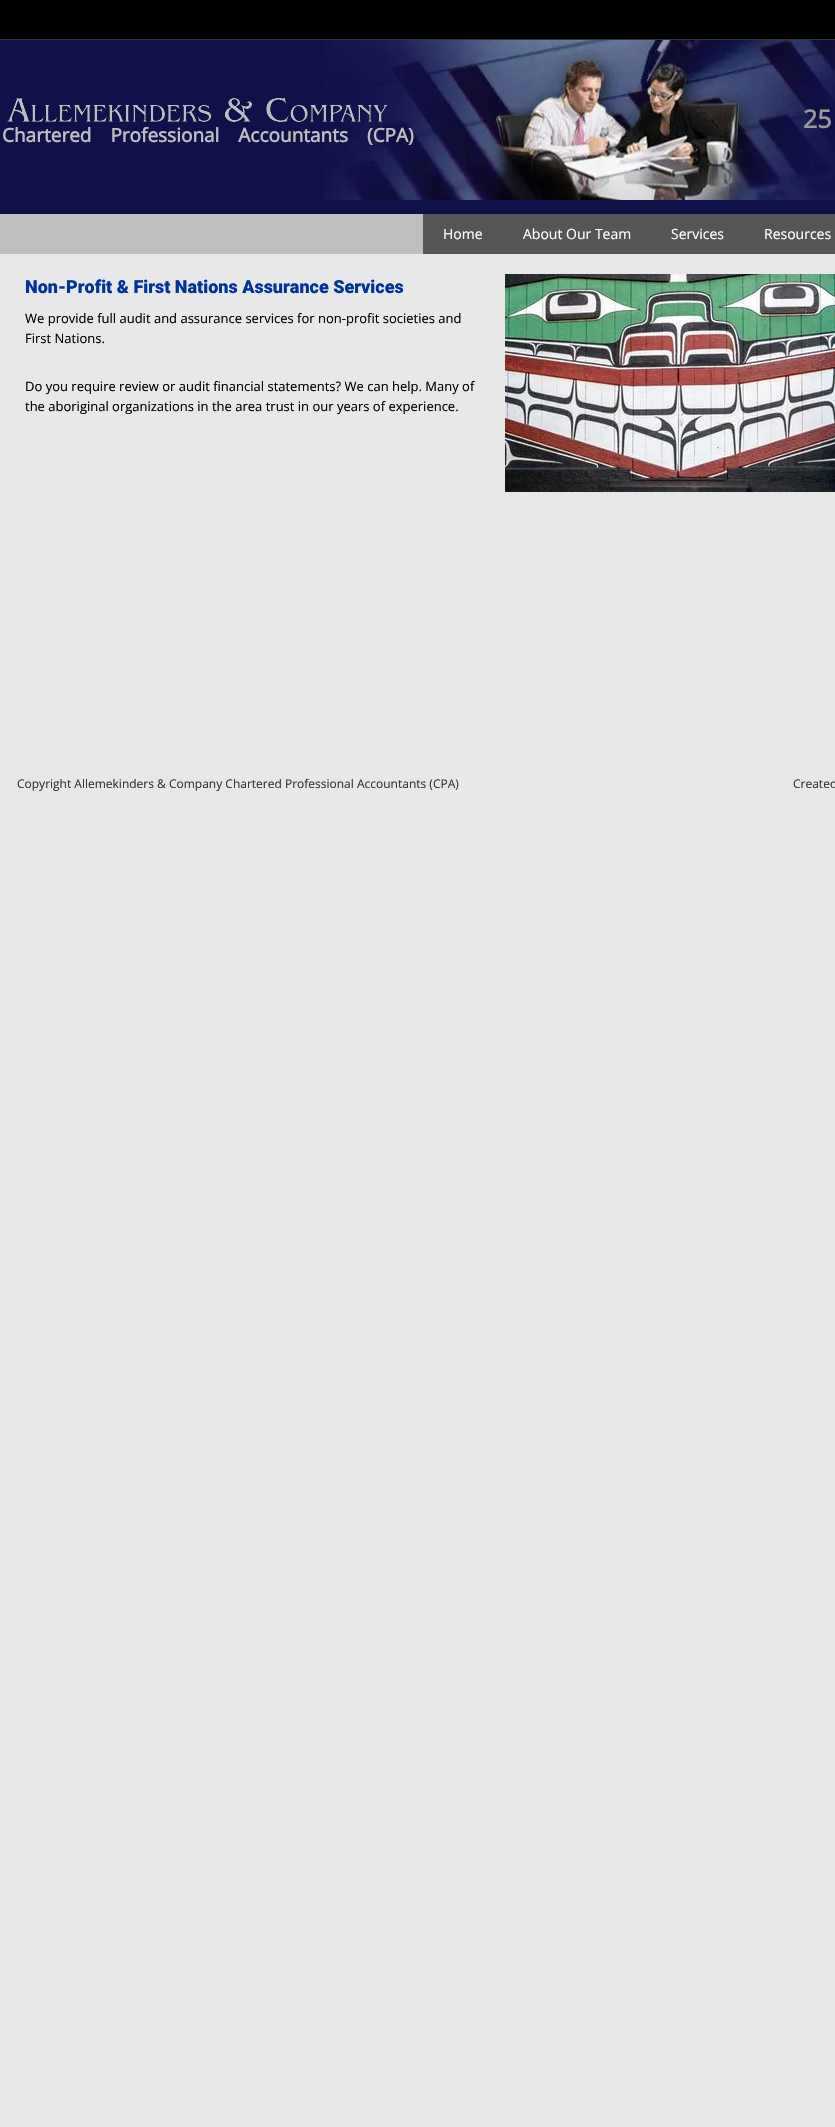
void draw(SkCanvas* canvas) {
    SkPaint paint;
    paint.setAntiAlias(true);
    auto spacedText = [&](const char* s, float x, float y, const SkFont& font, const SkPaint& ink, float letter, float word) {
        std::vector<SkGlyphID> glyphs(font.countText(s, strlen(s), SkTextEncoding::kUTF8));
        std::vector<float> xs(glyphs.size());
        font.textToGlyphs(s, strlen(s), SkTextEncoding::kUTF8, glyphs);
        font.getXPos(glyphs, xs, x);
        float extra = 0;
        for (size_t i = 0; i < glyphs.size(); i++) {
            xs[i] += extra;
            extra += letter + word * (glyphs[i] == font.unicharToGlyph(' '));
        }
        canvas->drawTextBlob(SkTextBlob::MakeFromPosHGlyphs(glyphs, xs, y, font), 0, 0, ink);
    };
    canvas->clear(0xFFE8E8E8);
    paint.setColor(0xFF000000);
    canvas->drawRect(SkRect::MakeXYWH(0, 0, 835, 39), paint);
    paint.setColor(0xFF11114A);
    canvas->drawRect(SkRect::MakeXYWH(0, 40, 835, 174), paint);
    canvas->drawImageRect(SkImages::DeferredFromEncodedData(SkData::MakeFromFileName("img1.png")), SkRect::MakeXYWH(324, 40, 511, 160), SkSamplingOptions());
    paint.setColor(0xFF333333);
    canvas->drawRect(SkRect::MakeXYWH(0, 39, 835, 1), paint);
    SkFont font1(fontMgr->matchFamilyStyle("Open Sans", SkFontStyle::Bold()), 25);
    font1.setSubpixel(true);
    paint.setColor(0xFF999999);
    canvas->drawString("25", 803, 128, font1, paint);
    canvas->drawImageRect(SkImages::DeferredFromEncodedData(SkData::MakeFromFileName("img2.png")), SkRect::MakeXYWH(6, 97, 382, 25), SkSamplingOptions());
    SkFont font2(fontMgr->matchFamilyStyle("Open Sans", SkFontStyle::Bold()), 19);
    font2.setSubpixel(true);
    paint.setColor(0xFFBFBFBF);
    spacedText("Chartered Professional Accountants (CPA)", 2, 142, font2, paint, 0, 14);
    canvas->drawRect(SkRect::MakeXYWH(0, 214, 423, 40), paint);
    paint.setColor(0xFF555555);
    canvas->drawRect(SkRect::MakeXYWH(423, 214, 412, 40), paint);
    SkFont font3(fontMgr->matchFamilyStyle("Open Sans", SkFontStyle::Normal()), 14);
    font3.setSubpixel(true);
    paint.setColor(0xFFFFFFFF);
    canvas->drawString("Home", 443, 239, font3, paint);
    canvas->drawString("About Our Team", 523, 239, font3, paint);
    canvas->drawString("Services", 671, 239, font3, paint);
    canvas->drawString("Resources", 764, 239, font3, paint);
    SkFont font4(fontMgr->matchFamilyStyle("Roboto", SkFontStyle(900, SkFontStyle::kNormal_Width, SkFontStyle::kUpright_Slant)), 18);
    font4.setSubpixel(true);
    paint.setColor(0xFF003399);
    canvas->drawString("Non-Profit & First Nations Assurance Services", 25, 293, font4, paint);
    SkFont font5(fontMgr->matchFamilyStyle("Open Sans", SkFontStyle::Normal()), 13);
    font5.setSubpixel(true);
    paint.setColor(0xFF000000);
    canvas->drawString("We provide full audit and assurance services for non-profit societies and", 25, 323, font5, paint);
    canvas->drawString("First Nations.", 25, 343, font5, paint);
    canvas->drawString("Do you require review or audit financial statements? We can help. Many of", 25, 391, font5, paint);
    canvas->drawString("the aboriginal organizations in the area trust in our years of experience.", 25, 411, font5, paint);
    canvas->drawImageRect(SkImages::DeferredFromEncodedData(SkData::MakeFromFileName("img3.png")), SkRect::MakeXYWH(505, 274, 330, 218), SkSamplingOptions());
    SkFont font6(fontMgr->matchFamilyStyle("Open Sans", SkFontStyle::Normal()), 12);
    font6.setSubpixel(true);
    paint.setColor(0xFF333333);
    canvas->drawString("Copyright Allemekinders & Company Chartered Professional Accountants (CPA)", 17, 788, font6, paint);
    canvas->drawString("Created", 793, 788, font6, paint);
}
